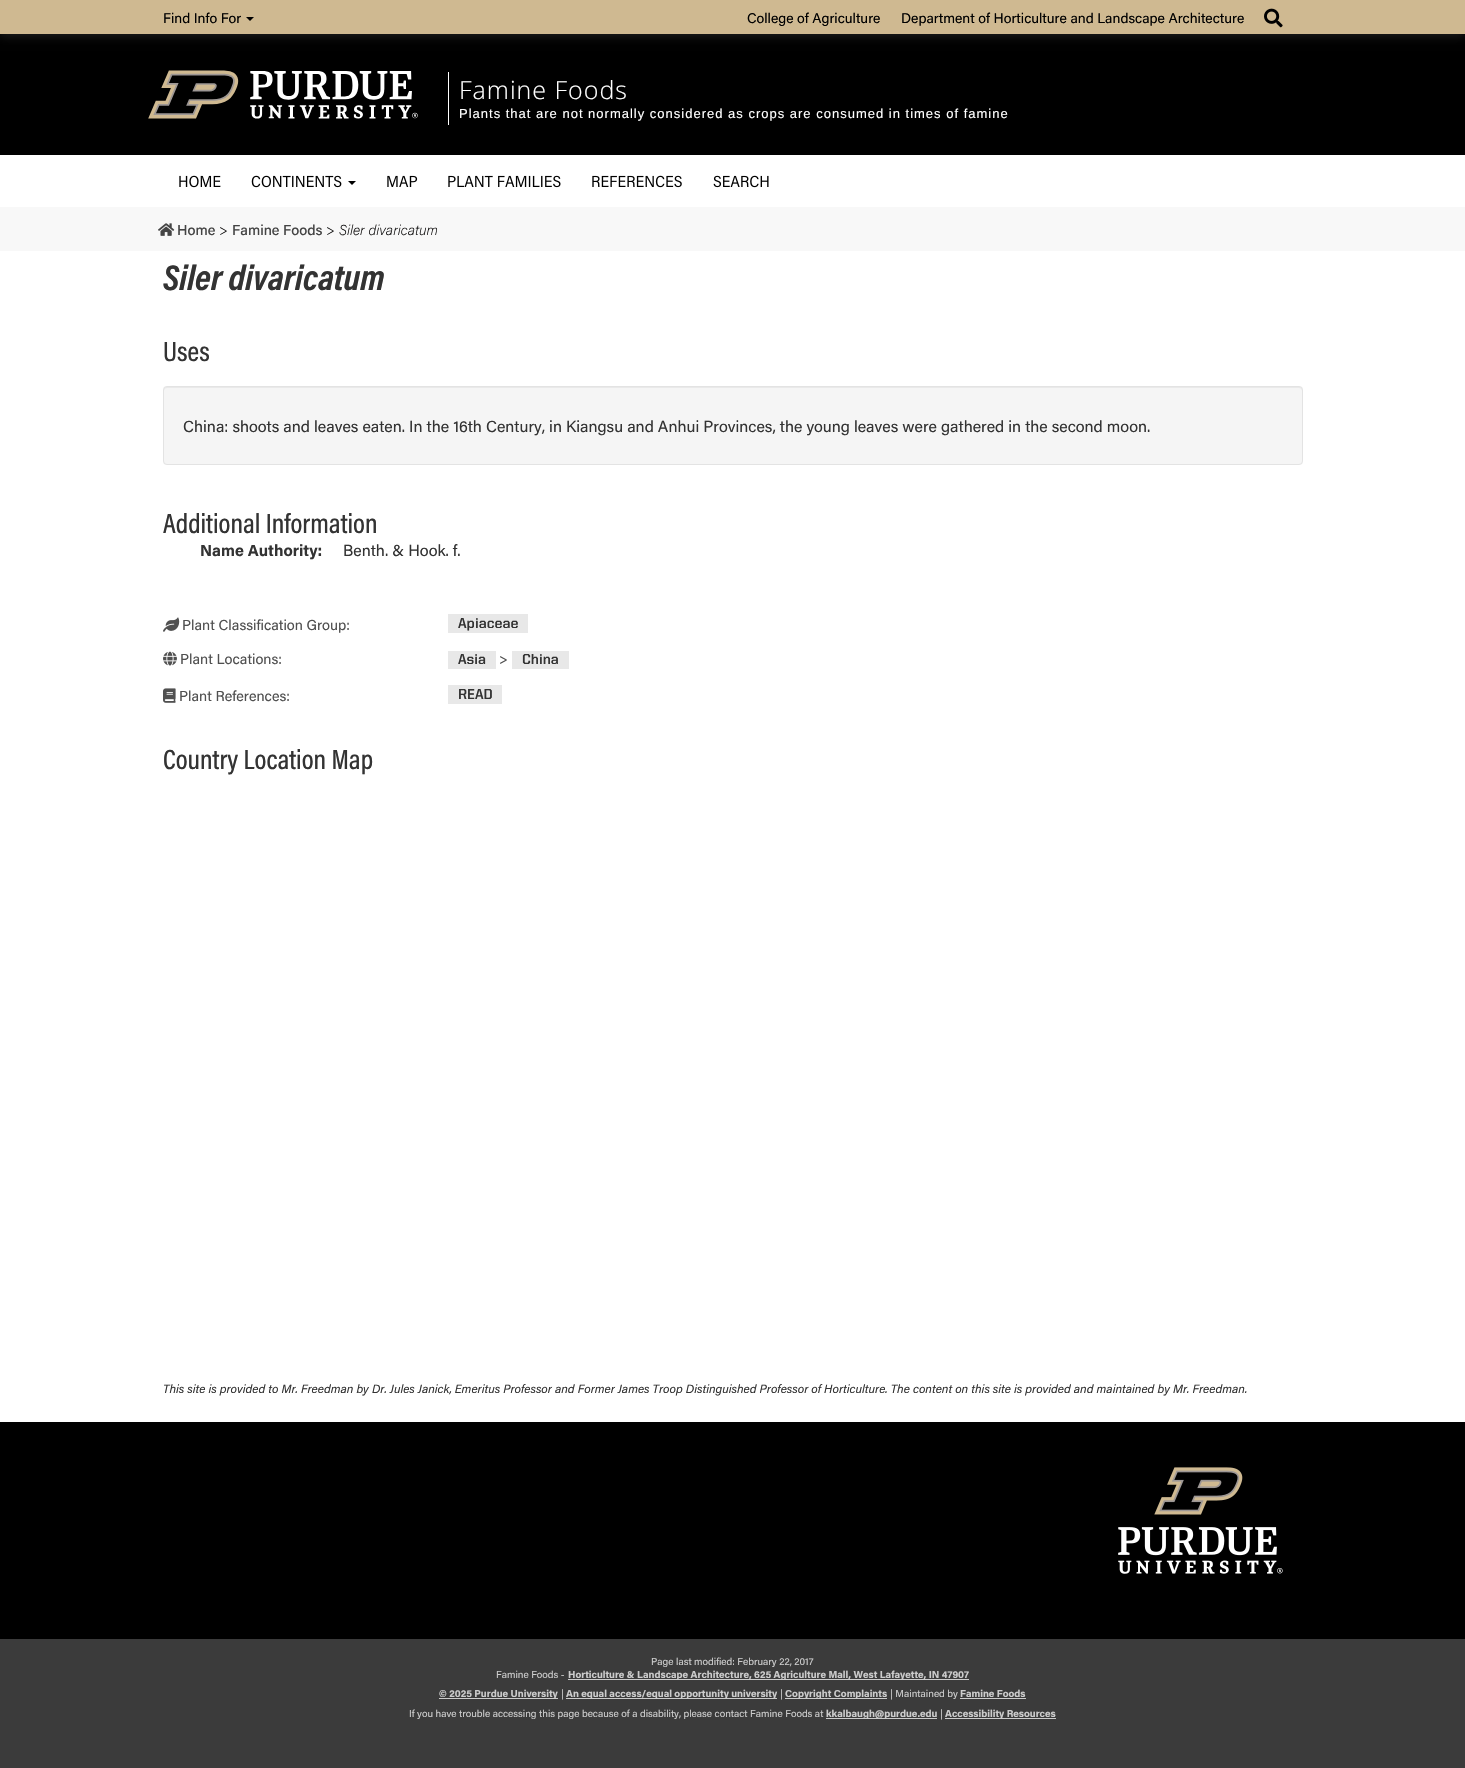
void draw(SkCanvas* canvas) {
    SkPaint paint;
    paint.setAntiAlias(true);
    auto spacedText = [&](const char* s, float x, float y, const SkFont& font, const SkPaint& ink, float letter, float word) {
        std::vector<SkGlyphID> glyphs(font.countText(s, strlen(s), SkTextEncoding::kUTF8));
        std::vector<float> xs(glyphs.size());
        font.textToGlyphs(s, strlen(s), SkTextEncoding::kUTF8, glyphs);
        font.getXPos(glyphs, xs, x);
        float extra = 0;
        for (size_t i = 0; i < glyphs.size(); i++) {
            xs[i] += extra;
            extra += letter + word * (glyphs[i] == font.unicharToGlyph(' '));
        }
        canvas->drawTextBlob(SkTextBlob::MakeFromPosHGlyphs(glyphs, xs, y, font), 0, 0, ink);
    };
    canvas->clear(0xFF3B3B3B);
    paint.setColor(0xFFFFFFFF);
    canvas->drawRect(SkRect::MakeXYWH(0, 155, 1465, 1267), paint);
    paint.setColor(0xFF000000);
    canvas->drawRect(SkRect::MakeXYWH(0, 34, 1465, 121), paint);
    paint.setColor(0xFF1E1E1E);
    paint.setMaskFilter(SkMaskFilter::MakeBlur(kNormal_SkBlurStyle, 5));
    canvas->drawRect(SkRect::MakeXYWH(0, 2, 1465, 34), paint);
    paint.setMaskFilter(nullptr);
    paint.setColor(0xFFCFB991);
    canvas->drawRect(SkRect::MakeXYWH(0, 0, 1465, 34), paint);
    SkFont font1(fontMgr->matchFamilyStyle("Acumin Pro", SkFontStyle::Normal()), 14);
    font1.setSubpixel(true);
    paint.setColor(0xFF000000);
    canvas->drawString("Find Info For", 163, 23, font1, paint);
    canvas->drawPath(SkPathBuilder().moveTo(246, 17).lineTo(254, 17).lineTo(250, 21).close().detach(), paint);
    canvas->drawString("College of Agriculture", 747, 23, font1, paint);
    canvas->drawString("Department of Horticulture and Landscape Architecture", 901, 23, font1, paint);
    canvas->drawImageRect(SkImages::DeferredFromEncodedData(SkData::MakeFromFileName("img1.png")), SkRect::MakeXYWH(1264, 8, 19, 20), SkSamplingOptions());
    canvas->drawImageRect(SkImages::DeferredFromEncodedData(SkData::MakeFromFileName("img2.png")), SkRect::MakeXYWH(148, 70, 270, 49), SkSamplingOptions());
    SkFont font2(fontMgr->matchFamilyStyle("Open Sans", SkFontStyle(300, SkFontStyle::kNormal_Width, SkFontStyle::kUpright_Slant)), 25);
    font2.setSubpixel(true);
    paint.setColor(0xFFFFFFFF);
    spacedText("Famine Foods", 459, 99, font2, paint, 1, 0);
    canvas->drawRect(SkRect::MakeXYWH(448, 72, 1, 53), paint);
    SkFont font3(fontMgr->matchFamilyStyle("Liberation Sans", SkFontStyle::Normal()), 13);
    font3.setSubpixel(true);
    spacedText("Plants that are not normally considered as crops are consumed in times of famine", 459, 118, font3, paint, 1, 0);
    canvas->drawImageRect(SkImages::DeferredFromEncodedData(SkData::MakeFromFileName("img3.png")), SkRect::MakeXYWH(179, 175, 42, 13), SkSamplingOptions());
    canvas->drawImageRect(SkImages::DeferredFromEncodedData(SkData::MakeFromFileName("img4.png")), SkRect::MakeXYWH(251, 175, 91, 13), SkSamplingOptions());
    paint.setColor(0xFF000000);
    canvas->drawPath(SkPathBuilder().moveTo(348, 181).lineTo(356, 181).lineTo(352, 185).close().detach(), paint);
    canvas->drawImageRect(SkImages::DeferredFromEncodedData(SkData::MakeFromFileName("img5.png")), SkRect::MakeXYWH(387, 175, 31, 12), SkSamplingOptions());
    canvas->drawImageRect(SkImages::DeferredFromEncodedData(SkData::MakeFromFileName("img6.png")), SkRect::MakeXYWH(448, 175, 113, 13), SkSamplingOptions());
    canvas->drawImageRect(SkImages::DeferredFromEncodedData(SkData::MakeFromFileName("img7.png")), SkRect::MakeXYWH(592, 175, 90, 13), SkSamplingOptions());
    canvas->drawImageRect(SkImages::DeferredFromEncodedData(SkData::MakeFromFileName("img8.png")), SkRect::MakeXYWH(713, 175, 56, 13), SkSamplingOptions());
    paint.setColor(0xFFF8F8F8);
    canvas->drawRect(SkRect::MakeXYWH(0, 207, 1465, 44), paint);
    canvas->drawImageRect(SkImages::DeferredFromEncodedData(SkData::MakeFromFileName("img9.png")), SkRect::MakeXYWH(158, 223, 17, 13), SkSamplingOptions());
    SkFont font4(fontMgr->matchFamilyStyle("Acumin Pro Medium", SkFontStyle(500, SkFontStyle::kNormal_Width, SkFontStyle::kUpright_Slant)), 14.4f);
    font4.setSubpixel(true);
    paint.setColor(0xFF444444);
    canvas->drawString("Home", 177, 235, font4, paint);
    SkFont font5(fontMgr->matchFamilyStyle("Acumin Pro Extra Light", SkFontStyle(200, SkFontStyle::kNormal_Width, SkFontStyle::kUpright_Slant)), 14.4f);
    font5.setSubpixel(true);
    paint.setColor(0xFF131212);
    canvas->drawString(">", 219, 235, font5, paint);
    paint.setColor(0xFF444444);
    canvas->drawString("Famine Foods", 232, 235, font4, paint);
    paint.setColor(0xFF131212);
    canvas->drawString(">", 326, 235, font5, paint);
    SkFont font6(fontMgr->matchFamilyStyle("Acumin Pro Extra Light", SkFontStyle(200, SkFontStyle::kNormal_Width, SkFontStyle::kItalic_Slant)), 14.4f);
    font6.setSubpixel(true);
    canvas->drawString("Siler divaricatum", 339, 235, font6, paint);
    SkFont font7(fontMgr->matchFamilyStyle("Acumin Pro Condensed", SkFontStyle::BoldItalic()), 36);
    font7.setSubpixel(true);
    paint.setColor(0xFF333333);
    canvas->drawString("Siler divaricatum", 163, 290, font7, paint);
    SkFont font8(fontMgr->matchFamilyStyle("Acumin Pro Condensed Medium", SkFontStyle(500, SkFontStyle::kNormal_Width, SkFontStyle::kUpright_Slant)), 28);
    font8.setSubpixel(true);
    canvas->drawString("Uses", 163, 361, font8, paint);
    paint.setColor(0xFFF5F5F5);
    canvas->drawRoundRect(SkRect::MakeXYWH(163, 386, 1140, 79), 4, 4, paint);
    paint.setColor(0xFFE9E9E9);
    canvas->drawPath(SkPathBuilder().moveTo(167, 388).lineTo(1299, 388).cubicTo(1301, 388, 1302, 389, 1302, 391).lineTo(1302, 390).cubicTo(1302, 388, 1301, 387, 1299, 387).lineTo(167, 387).cubicTo(165, 387, 164, 388, 164, 390).lineTo(164, 391).cubicTo(164, 389, 165, 388, 167, 388).close().detach(), paint);
    paint.setStyle(SkPaint::kStroke_Style);
    paint.setStrokeWidth(1);
    paint.setColor(0xFFE3E3E3);
    canvas->drawRoundRect(SkRect::MakeXYWH(163.5f, 386.5f, 1139, 78), 3.5f, 3.5f, paint);
    SkFont font9(fontMgr->matchFamilyStyle("Acumin Pro", SkFontStyle::Normal()), 16);
    font9.setSubpixel(true);
    paint.setStyle(SkPaint::kFill_Style);
    paint.setColor(0xFF333333);
    canvas->drawString("China: shoots and leaves eaten. In the 16th Century, in Kiangsu and Anhui Provinces, the young leaves were gathered in the second moon.", 183, 432, font9, paint);
    canvas->drawString("Additional Information", 163, 533, font8, paint);
    SkFont font10(fontMgr->matchFamilyStyle("Acumin Pro", SkFontStyle::Bold()), 16);
    font10.setSubpixel(true);
    canvas->drawString("Name Authority:", 200, 556, font10, paint);
    canvas->drawString("Benth. & Hook. f.", 343, 556, font9, paint);
    canvas->drawImageRect(SkImages::DeferredFromEncodedData(SkData::MakeFromFileName("img10.png")), SkRect::MakeXYWH(163, 617, 17, 15), SkSamplingOptions());
    SkFont font11(fontMgr->matchFamilyStyle("Acumin Pro", SkFontStyle::Normal()), 14.4f);
    font11.setSubpixel(true);
    paint.setColor(0xFF505050);
    canvas->drawString("Plant Classification Group:", 182, 630, font11, paint);
    paint.setColor(0xFFE8E8E8);
    canvas->drawRect(SkRect::MakeXYWH(448, 614, 80, 19), paint);
    SkFont font12(fontMgr->matchFamilyStyle("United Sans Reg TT", SkFontStyle::Bold()), 14.4f);
    font12.setSubpixel(true);
    paint.setColor(0xFF333333);
    canvas->drawString("Apiaceae", 458, 628, font12, paint);
    canvas->drawImageRect(SkImages::DeferredFromEncodedData(SkData::MakeFromFileName("img11.png")), SkRect::MakeXYWH(163, 651, 14, 15), SkSamplingOptions());
    paint.setColor(0xFF505050);
    canvas->drawString("Plant Locations:", 180, 664, font11, paint);
    paint.setColor(0xFFE8E8E8);
    canvas->drawRect(SkRect::MakeXYWH(448, 651, 48, 18), paint);
    paint.setColor(0xFF333333);
    canvas->drawString("Asia", 458, 664, font12, paint);
    paint.setColor(0xFF505050);
    canvas->drawString(">", 499, 664, font11, paint);
    paint.setColor(0xFFE8E8E8);
    canvas->drawRect(SkRect::MakeXYWH(512, 651, 57, 18), paint);
    paint.setColor(0xFF333333);
    canvas->drawString("China", 522, 664, font12, paint);
    canvas->drawImageRect(SkImages::DeferredFromEncodedData(SkData::MakeFromFileName("img12.png")), SkRect::MakeXYWH(163, 688, 13, 15), SkSamplingOptions());
    paint.setColor(0xFF505050);
    canvas->drawString("Plant References:", 179, 701, font11, paint);
    paint.setColor(0xFFE8E8E8);
    canvas->drawRect(SkRect::MakeXYWH(448, 685, 54, 19), paint);
    paint.setColor(0xFF333333);
    canvas->drawString("READ", 458, 699, font12, paint);
    canvas->drawString("Country Location Map", 163, 769, font8, paint);
    SkFont font13(fontMgr->matchFamilyStyle("Acumin Pro", SkFontStyle::Italic()), 12);
    font13.setSubpixel(true);
    canvas->drawString("This site is provided to Mr. Freedman by Dr. Jules Janick, Emeritus Professor and Former James Troop Distinguished Professor of Horticulture. The content on this site is provided and maintained by Mr. Freedman.", 163, 1393, font13, paint);
    paint.setColor(0xFF000000);
    canvas->drawRect(SkRect::MakeXYWH(0, 1422, 1465, 217), paint);
    canvas->drawImageRect(SkImages::DeferredFromEncodedData(SkData::MakeFromFileName("img13.png")), SkRect::MakeXYWH(1118, 1467, 165, 107), SkSamplingOptions());
    SkFont font14(fontMgr->matchFamilyStyle("Acumin Pro", SkFontStyle::Normal()), 10);
    font14.setSubpixel(true);
    paint.setColor(0xFFCCCCCC);
    canvas->drawString("Page last modified: February 22, 2017", 651, 1665, font14, paint);
    canvas->drawString("Famine Foods -", 496, 1678, font14, paint);
    canvas->drawRect(SkRect::MakeXYWH(568, 1679, 401, 1), paint);
    SkFont font15(fontMgr->matchFamilyStyle("Acumin Pro", SkFontStyle::Bold()), 10);
    font15.setSubpixel(true);
    canvas->drawString("Horticulture & Landscape Architecture, 625 Agriculture Mall, West Lafayette, IN 47907", 568, 1678, font15, paint);
    canvas->drawRect(SkRect::MakeXYWH(439, 1698, 119, 1), paint);
    canvas->drawString("© 2025 Purdue University", 439, 1697, font15, paint);
    canvas->drawString("|", 561, 1697, font14, paint);
    canvas->drawRect(SkRect::MakeXYWH(566, 1698, 211, 1), paint);
    canvas->drawString("An equal access/equal opportunity university", 566, 1697, font15, paint);
    canvas->drawString("|", 780, 1697, font14, paint);
    canvas->drawRect(SkRect::MakeXYWH(785, 1698, 102, 1), paint);
    canvas->drawString("Copyright Complaints", 785, 1697, font15, paint);
    canvas->drawString("| Maintained by", 890, 1697, font14, paint);
    canvas->drawString("Famine Foods", 960, 1697, font15, paint);
    canvas->drawRect(SkRect::MakeXYWH(960, 1698, 66, 1), paint);
    canvas->drawString("If you have trouble accessing this page because of a disability, please contact Famine Foods at", 409, 1717, font14, paint);
    canvas->drawRect(SkRect::MakeXYWH(826, 1718, 111, 1), paint);
    canvas->drawString("kkalbaugh@purdue.edu", 826, 1717, font15, paint);
    canvas->drawString("|", 940, 1717, font14, paint);
    canvas->drawRect(SkRect::MakeXYWH(945, 1718, 111, 1), paint);
    canvas->drawString("Accessibility Resources", 945, 1717, font15, paint);
}
